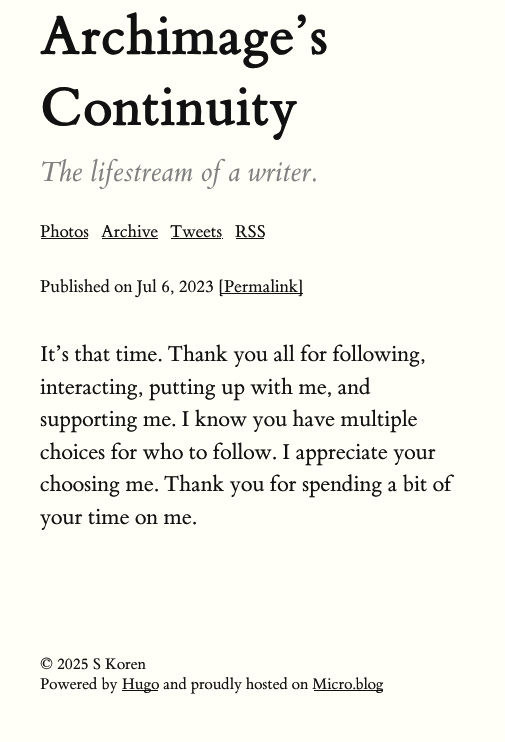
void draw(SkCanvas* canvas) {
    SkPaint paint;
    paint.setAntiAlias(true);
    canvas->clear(0xFFFFFFF8);
    SkFont font1(fontMgr->matchFamilyStyle("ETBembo", SkFontStyle::Bold()), 57);
    font1.setSubpixel(true);
    paint.setColor(0xFF111111);
    canvas->drawString("Archimage’s", 40, 54, font1, paint);
    canvas->drawString("Continuity", 40, 125, font1, paint);
    SkFont font2(fontMgr->matchFamilyStyle("ETBembo", SkFontStyle::Italic()), 29.25f);
    font2.setSubpixel(true);
    paint.setColor(0xFF808080);
    canvas->drawString("The lifestream of a writer.", 40, 181, font2, paint);
    SkFont font3(fontMgr->matchFamilyStyle("ETBembo", SkFontStyle::Normal()), 17.9f);
    font3.setSubpixel(true);
    paint.setColor(0xFF111111);
    canvas->drawString("Photos", 40, 237, font3, paint);
    canvas->drawRect(SkRect::MakeXYWH(40, 238, 49, 1), paint);
    paint.setColor(0xFFFFFFF8);
    canvas->drawRect(SkRect::MakeXYWH(88, 238, 1, 1), paint);
    canvas->drawRect(SkRect::MakeXYWH(40, 238, 1, 1), paint);
    paint.setColor(0xFF111111);
    canvas->drawString("Archive", 101, 237, font3, paint);
    canvas->drawRect(SkRect::MakeXYWH(101, 238, 58, 1), paint);
    paint.setColor(0xFFFFFFF8);
    canvas->drawRect(SkRect::MakeXYWH(158, 238, 1, 1), paint);
    canvas->drawRect(SkRect::MakeXYWH(101, 238, 1, 1), paint);
    paint.setColor(0xFF111111);
    canvas->drawString("Tweets", 170, 237, font3, paint);
    canvas->drawRect(SkRect::MakeXYWH(170, 238, 53, 1), paint);
    paint.setColor(0xFFFFFFF8);
    canvas->drawRect(SkRect::MakeXYWH(221, 238, 1, 1), paint);
    canvas->drawRect(SkRect::MakeXYWH(170, 238, 1, 1), paint);
    paint.setColor(0xFF111111);
    canvas->drawString("RSS", 235, 237, font3, paint);
    canvas->drawRect(SkRect::MakeXYWH(235, 238, 30, 1), paint);
    paint.setColor(0xFFFFFFF8);
    canvas->drawRect(SkRect::MakeXYWH(264, 238, 1, 1), paint);
    canvas->drawRect(SkRect::MakeXYWH(235, 238, 1, 1), paint);
    paint.setColor(0xFF111111);
    canvas->drawString("Published on Jul 6, 2023", 40, 292, font3, paint);
    canvas->drawRect(SkRect::MakeXYWH(219, 293, 85, 1), paint);
    canvas->drawString("[Permalink]", 218, 292, font3, paint);
    paint.setColor(0xFFFFFFF8);
    canvas->drawRect(SkRect::MakeXYWH(303, 293, 1, 1), paint);
    canvas->drawRect(SkRect::MakeXYWH(219, 293, 1, 1), paint);
    SkFont font4(fontMgr->matchFamilyStyle("ETBembo", SkFontStyle::Normal()), 22.75f);
    font4.setSubpixel(true);
    paint.setColor(0xFF111111);
    canvas->drawString("It’s that time. Thank you all for following,", 40, 361, font4, paint);
    canvas->drawString("interacting, putting up with me, and", 40, 394, font4, paint);
    canvas->drawString("supporting me. I know you have multiple", 40, 426, font4, paint);
    canvas->drawString("choices for who to follow. I appreciate your", 40, 459, font4, paint);
    canvas->drawString("choosing me. Thank you for spending a bit of", 40, 491, font4, paint);
    canvas->drawString("your time on me.", 40, 524, font4, paint);
    SkFont font5(fontMgr->matchFamilyStyle("ETBembo", SkFontStyle::Normal()), 16.25f);
    font5.setSubpixel(true);
    canvas->drawString("© 2025 S Koren", 40, 669, font5, paint);
    canvas->drawString("Powered by", 40, 689, font5, paint);
    canvas->drawRect(SkRect::MakeXYWH(121, 690, 38, 1), paint);
    paint.setColor(0xFFFFFFF8);
    canvas->drawRect(SkRect::MakeXYWH(158, 690, 1, 1), paint);
    paint.setColor(0xFF111111);
    canvas->drawString("Hugo and proudly hosted on", 122, 689, font5, paint);
    paint.setColor(0xFFFFFFF8);
    canvas->drawRect(SkRect::MakeXYWH(121, 690, 1, 1), paint);
    paint.setColor(0xFF111111);
    canvas->drawRect(SkRect::MakeXYWH(313, 690, 71, 1), paint);
    paint.setColor(0xFFFFFFF8);
    canvas->drawRect(SkRect::MakeXYWH(383, 690, 1, 1), paint);
    canvas->drawRect(SkRect::MakeXYWH(313, 690, 1, 1), paint);
    paint.setColor(0xFF111111);
    canvas->drawString("Micro.blog", 312, 689, font5, paint);
}
